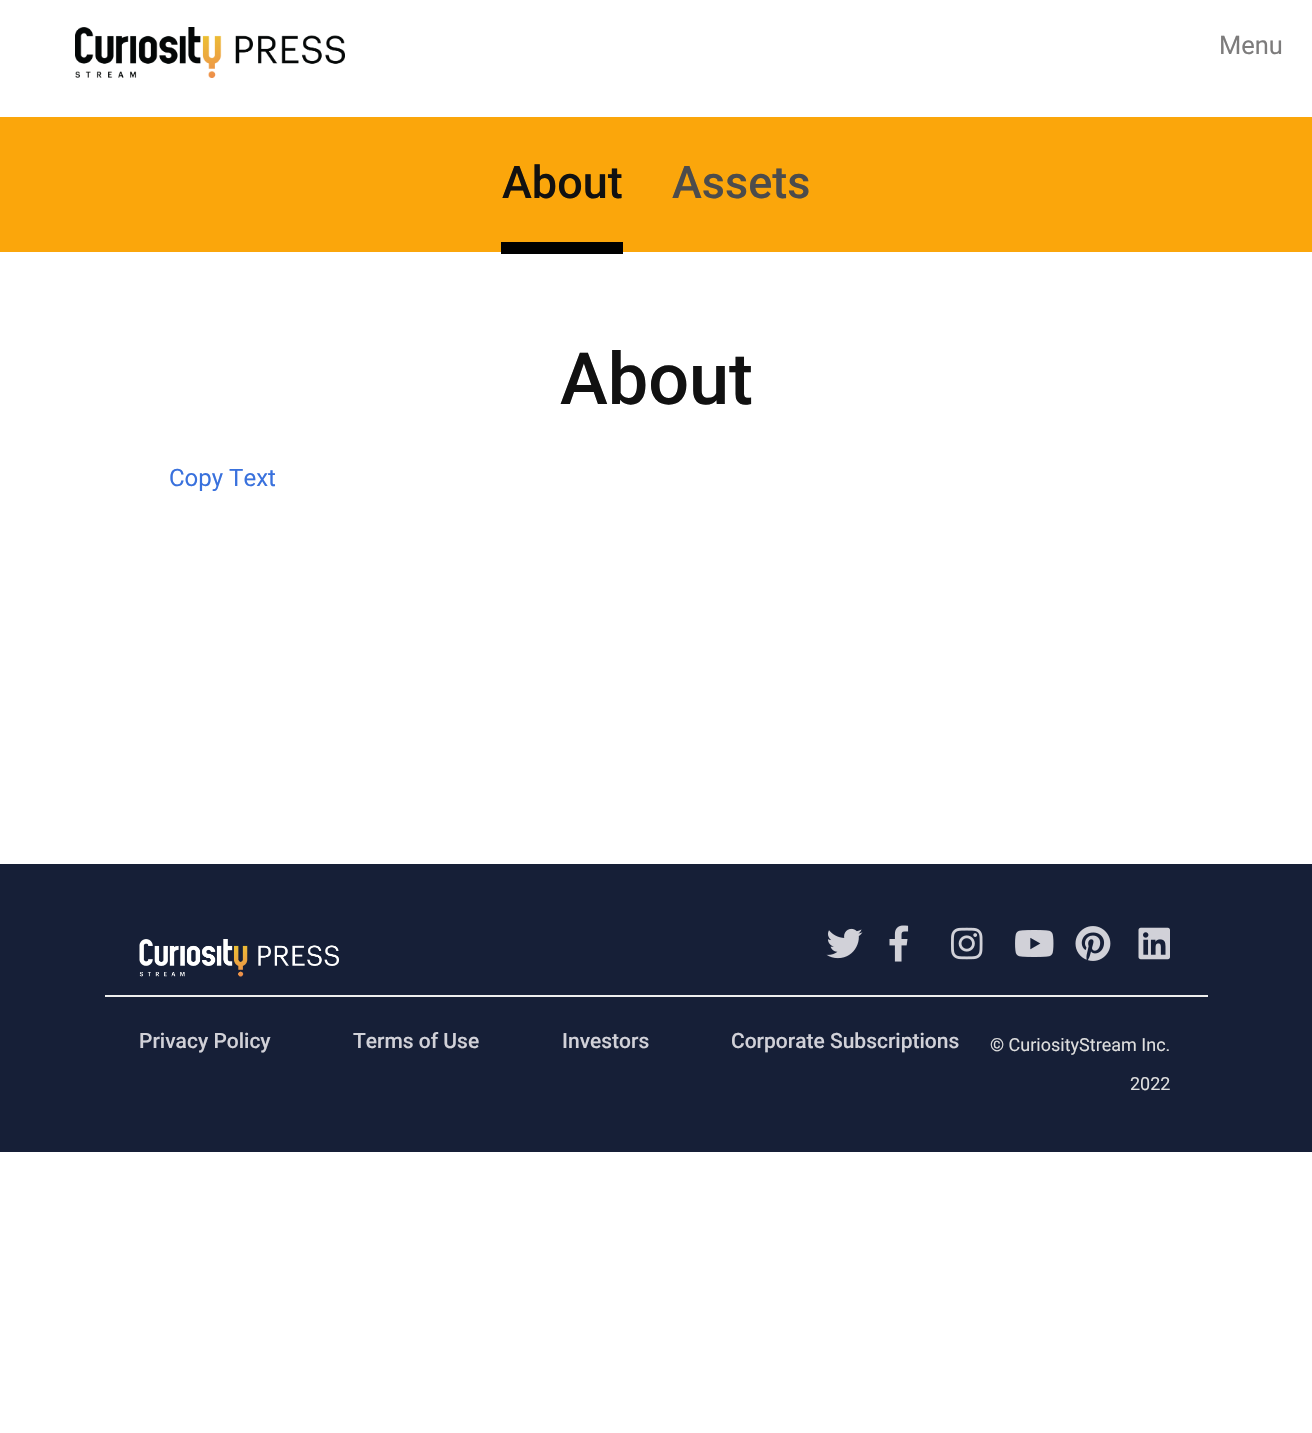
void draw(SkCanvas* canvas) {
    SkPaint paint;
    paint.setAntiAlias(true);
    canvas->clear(0xFFFFFFFF);
    canvas->drawImageRect(SkImages::DeferredFromEncodedData(SkData::MakeFromFileName("img1.png")), SkRect::MakeXYWH(75, 27, 270, 51), SkSamplingOptions());
    SkFont font1(fontMgr->matchFamilyStyle("Roboto", SkFontStyle::Normal()), 25.5f);
    font1.setSubpixel(true);
    paint.setColor(0xFF7D7C7C);
    canvas->drawString("Menu", 1219, 54, font1, paint);
    paint.setColor(0xFFFBA60B);
    canvas->drawRect(SkRect::MakeXYWH(0, 117, 1312, 135), paint);
    SkFont font2(fontMgr->matchFamilyStyle("Roboto", SkFontStyle(500, SkFontStyle::kNormal_Width, SkFontStyle::kUpright_Slant)), 45);
    font2.setSubpixel(true);
    paint.setColor(0xFF111111);
    canvas->drawString("About", 502, 198, font2, paint);
    paint.setColor(0xFF000000);
    canvas->drawRect(SkRect::MakeXYWH(501, 242, 122, 12), paint);
    paint.setColor(0xFF4C4C4C);
    canvas->drawString("Assets", 672, 198, font2, paint);
    SkFont font3(fontMgr->matchFamilyStyle("Roboto", SkFontStyle(500, SkFontStyle::kNormal_Width, SkFontStyle::kUpright_Slant)), 72);
    font3.setSubpixel(true);
    paint.setColor(0xFF111111);
    canvas->drawString("About", 560, 404, font3, paint);
    SkFont font4(fontMgr->matchFamilyStyle("Roboto", SkFontStyle::Normal()), 24);
    font4.setSubpixel(true);
    paint.setColor(0xFF3971DD);
    canvas->drawString("Copy Text", 169, 486, font4, paint);
    paint.setColor(0xFF161F37);
    canvas->drawRect(SkRect::MakeXYWH(0, 864, 1312, 288), paint);
    canvas->drawImageRect(SkImages::DeferredFromEncodedData(SkData::MakeFromFileName("img2.png")), SkRect::MakeXYWH(139, 939, 200, 38), SkSamplingOptions());
    canvas->drawImageRect(SkImages::DeferredFromEncodedData(SkData::MakeFromFileName("img3.png")), SkRect::MakeXYWH(826, 928, 37, 31), SkSamplingOptions());
    canvas->drawImageRect(SkImages::DeferredFromEncodedData(SkData::MakeFromFileName("img4.png")), SkRect::MakeXYWH(889, 925, 20, 37), SkSamplingOptions());
    canvas->drawImageRect(SkImages::DeferredFromEncodedData(SkData::MakeFromFileName("img5.png")), SkRect::MakeXYWH(951, 927, 32, 33), SkSamplingOptions());
    canvas->drawImageRect(SkImages::DeferredFromEncodedData(SkData::MakeFromFileName("img6.png")), SkRect::MakeXYWH(1015, 930, 39, 27), SkSamplingOptions());
    canvas->drawImageRect(SkImages::DeferredFromEncodedData(SkData::MakeFromFileName("img7.png")), SkRect::MakeXYWH(1075, 926, 36, 35), SkSamplingOptions());
    canvas->drawImageRect(SkImages::DeferredFromEncodedData(SkData::MakeFromFileName("img8.png")), SkRect::MakeXYWH(1138, 927, 32, 33), SkSamplingOptions());
    paint.setColor(0xFFEEEEEE);
    canvas->drawRect(SkRect::MakeXYWH(105, 995, 1103, 2), paint);
    SkFont font5(fontMgr->matchFamilyStyle("Roboto", SkFontStyle(500, SkFontStyle::kNormal_Width, SkFontStyle::kUpright_Slant)), 21);
    font5.setSubpixel(true);
    paint.setColor(0xFFD1D1D8);
    canvas->drawString("Privacy Policy", 139, 1048, font5, paint);
    canvas->drawString("Terms of Use", 353, 1048, font5, paint);
    canvas->drawString("Investors", 562, 1048, font5, paint);
    canvas->drawString("Corporate Subscriptions", 731, 1048, font5, paint);
    SkFont font6(fontMgr->matchFamilyStyle("Roboto", SkFontStyle::Normal()), 18);
    font6.setSubpixel(true);
    paint.setColor(0xFFDEDEDE);
    canvas->drawString("© CuriosityStream Inc.", 990, 1051, font6, paint);
    canvas->drawString("2022", 1130, 1090, font6, paint);
}
